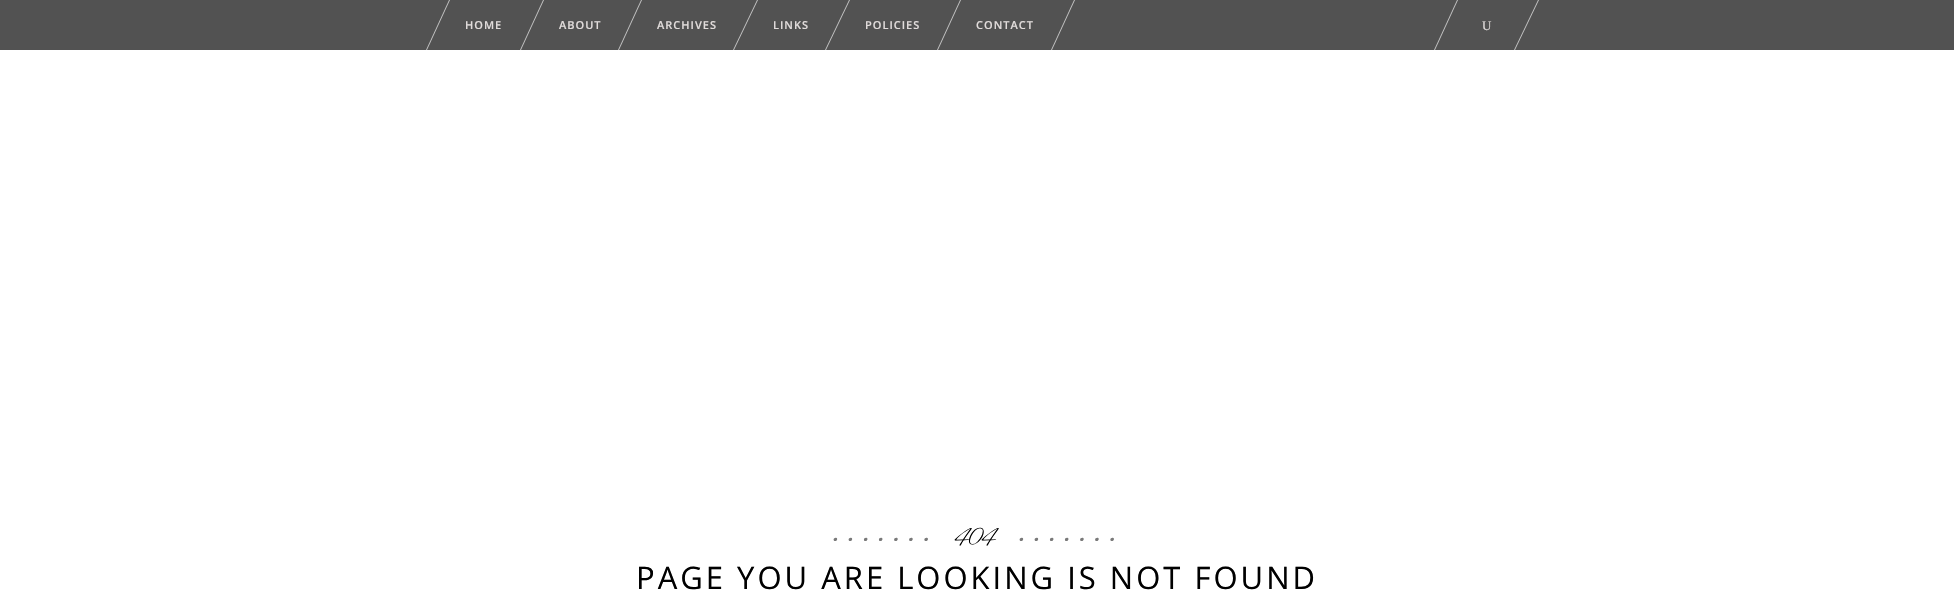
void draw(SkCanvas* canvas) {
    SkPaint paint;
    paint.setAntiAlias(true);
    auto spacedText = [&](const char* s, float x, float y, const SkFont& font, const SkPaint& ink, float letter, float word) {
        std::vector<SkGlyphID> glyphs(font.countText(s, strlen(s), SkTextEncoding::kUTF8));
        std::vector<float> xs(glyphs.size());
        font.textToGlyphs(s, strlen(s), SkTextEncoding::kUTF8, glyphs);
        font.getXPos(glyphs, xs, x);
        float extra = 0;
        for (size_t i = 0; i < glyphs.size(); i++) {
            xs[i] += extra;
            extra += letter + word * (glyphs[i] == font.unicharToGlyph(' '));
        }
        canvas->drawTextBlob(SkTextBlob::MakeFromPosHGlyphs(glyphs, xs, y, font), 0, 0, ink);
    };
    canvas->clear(0xFFFFFFFF);
    paint.setColor(0xFF525252);
    canvas->drawRect(SkRect::MakeXYWH(0, 0, 1954, 50), paint);
    paint.setColor(0xFFC4C4C4);
    canvas->drawPath(SkPathBuilder().moveTo(543, 0).lineTo(544, 0).lineTo(521, 50).lineTo(520, 50).close().detach(), paint);
    canvas->drawPath(SkPathBuilder().moveTo(449, 0).lineTo(450, 0).lineTo(427, 50).lineTo(426, 50).close().detach(), paint);
    SkFont font1(fontMgr->matchFamilyStyle("Open Sans", SkFontStyle(600, SkFontStyle::kNormal_Width, SkFontStyle::kUpright_Slant)), 11);
    font1.setSubpixel(true);
    paint.setColor(0xFFE1DCDB);
    spacedText("HOME", 465, 29, font1, paint, 1, 0);
    spacedText("ABOUT", 559, 29, font1, paint, 1, 0);
    paint.setColor(0xFFC4C4C4);
    canvas->drawPath(SkPathBuilder().moveTo(641, 0).lineTo(642, 0).lineTo(619, 50).lineTo(618, 50).close().detach(), paint);
    paint.setColor(0xFFE1DCDB);
    spacedText("ARCHIVES", 657, 29, font1, paint, 1, 0);
    paint.setColor(0xFFC4C4C4);
    canvas->drawPath(SkPathBuilder().moveTo(757, 0).lineTo(758, 0).lineTo(734, 50).lineTo(733, 50).close().detach(), paint);
    paint.setColor(0xFFE1DCDB);
    spacedText("LINKS", 773, 29, font1, paint, 1, 0);
    paint.setColor(0xFFC4C4C4);
    canvas->drawPath(SkPathBuilder().moveTo(849, 0).lineTo(850, 0).lineTo(826, 50).lineTo(825, 50).close().detach(), paint);
    paint.setColor(0xFFE1DCDB);
    spacedText("POLICIES", 865, 29, font1, paint, 1, 0);
    paint.setColor(0xFFC4C4C4);
    canvas->drawPath(SkPathBuilder().moveTo(960, 0).lineTo(961, 0).lineTo(938, 50).lineTo(937, 50).close().detach(), paint);
    paint.setColor(0xFFE1DCDB);
    spacedText("CONTACT", 976, 29, font1, paint, 1, 0);
    paint.setColor(0xFFC4C4C4);
    canvas->drawPath(SkPathBuilder().moveTo(1074, 0).lineTo(1075, 0).lineTo(1052, 50).lineTo(1051, 50).close().detach(), paint);
    canvas->drawPath(SkPathBuilder().moveTo(1538, 0).lineTo(1539, 0).lineTo(1515, 50).lineTo(1514, 50).close().detach(), paint);
    canvas->drawPath(SkPathBuilder().moveTo(1457, 0).lineTo(1458, 0).lineTo(1435, 50).lineTo(1434, 50).close().detach(), paint);
    SkFont font2(fontMgr->matchFamilyStyle("Liberation Serif", SkFontStyle::Normal()), 13);
    font2.setSubpixel(true);
    paint.setColor(0xFFE1DCDB);
    canvas->drawString("U", 1482, 30, font2, paint);
    SkFont font3(fontMgr->matchFamilyStyle("Mr De Haviland", SkFontStyle::Normal()), 65);
    font3.setSubpixel(true);
    paint.setColor(0xFF797979);
    spacedText(".......", 831, 540, font3, paint, 1, 0);
    SkFont font4(fontMgr->matchFamilyStyle("Mr De Haviland", SkFontStyle::Normal()), 24);
    font4.setSubpixel(true);
    paint.setColor(0xFF000000);
    canvas->drawString("404", 957, 544, font4, paint);
    paint.setColor(0xFF797979);
    spacedText(".......", 1017, 540, font3, paint, 1, 0);
    SkFont font5(fontMgr->matchFamilyStyle("Open Sans", SkFontStyle::Normal()), 31);
    font5.setSubpixel(true);
    paint.setColor(0xFF000000);
    spacedText("PAGE YOU ARE LOOKING IS NOT FOUND", 636, 589, font5, paint, 3, 0);
}
